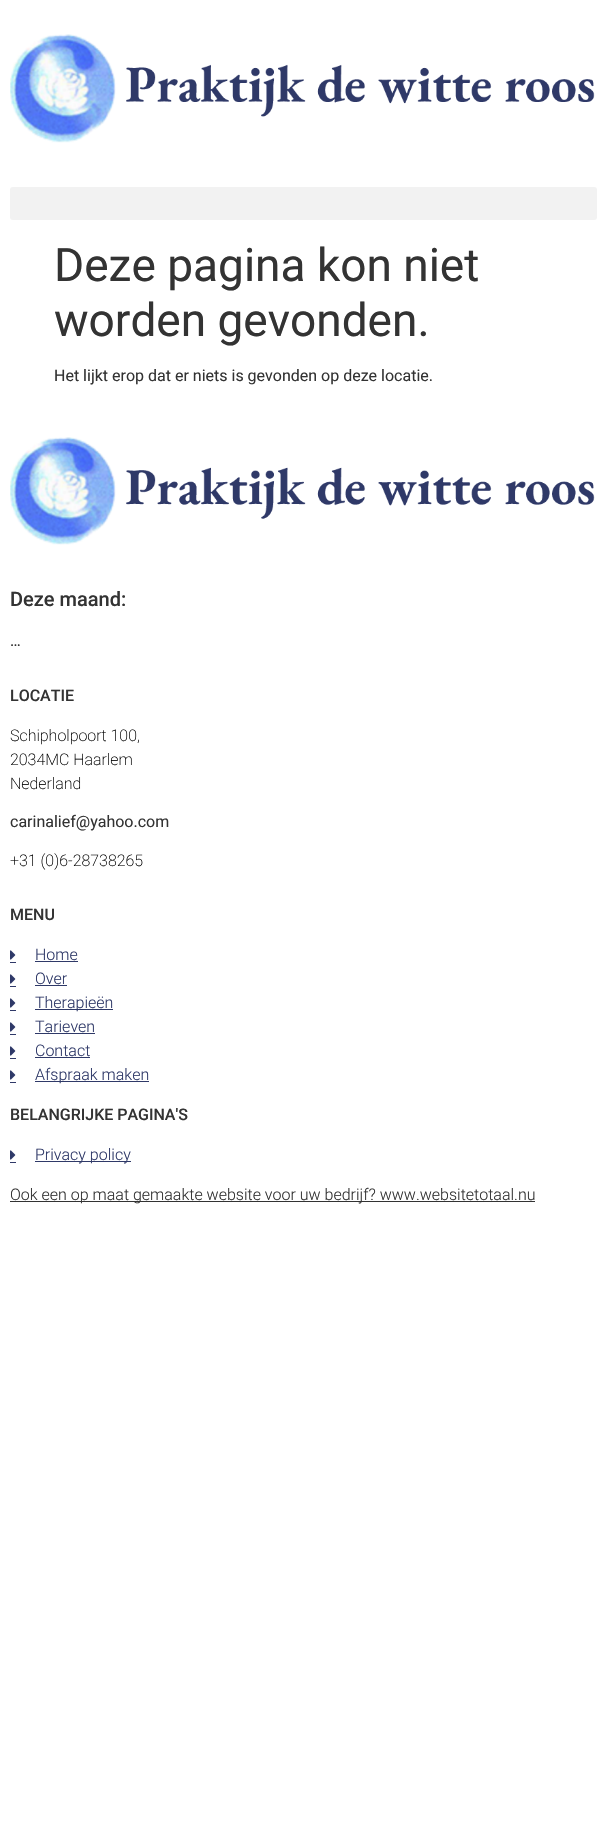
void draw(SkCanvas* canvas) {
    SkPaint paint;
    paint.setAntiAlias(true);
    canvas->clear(0xFFFFFFFF);
    canvas->drawImageRect(SkImages::DeferredFromEncodedData(SkData::MakeFromFileName("img1.png")), SkRect::MakeXYWH(10, 34, 585, 109), SkSamplingOptions());
    paint.setColor(0xFFF2F2F2);
    canvas->drawRoundRect(SkRect::MakeXYWH(10, 187, 587, 33), 3, 3, paint);
    SkFont font1(fontMgr->matchFamilyStyle("Roboto", SkFontStyle::Normal()), 46);
    font1.setSubpixel(true);
    paint.setColor(0xFF333333);
    canvas->drawString("Deze pagina kon niet", 54, 281, font1, paint);
    canvas->drawString("worden gevonden.", 54, 336, font1, paint);
    SkFont font2(fontMgr->matchFamilyStyle("Roboto", SkFontStyle::Normal()), 16);
    font2.setSubpixel(true);
    canvas->drawString("Het lijkt erop dat er niets is gevonden op deze locatie.", 54, 381, font2, paint);
    canvas->drawImageRect(SkImages::DeferredFromEncodedData(SkData::MakeFromFileName("img2.png")), SkRect::MakeXYWH(10, 437, 585, 108), SkSamplingOptions());
    SkFont font3(fontMgr->matchFamilyStyle("Roboto", SkFontStyle(500, SkFontStyle::kNormal_Width, SkFontStyle::kUpright_Slant)), 20);
    font3.setSubpixel(true);
    canvas->drawString("Deze maand:", 10, 606, font3, paint);
    canvas->drawString("…", 10, 646, font2, paint);
    SkFont font4(fontMgr->matchFamilyStyle("Roboto", SkFontStyle(500, SkFontStyle::kNormal_Width, SkFontStyle::kUpright_Slant)), 16);
    font4.setSubpixel(true);
    canvas->drawString("LOCATIE", 10, 701, font4, paint);
    SkFont font5(fontMgr->matchFamilyStyle("Roboto", SkFontStyle(200, SkFontStyle::kNormal_Width, SkFontStyle::kUpright_Slant)), 16);
    font5.setSubpixel(true);
    paint.setColor(0xFF000000);
    canvas->drawString("Schipholpoort 100,", 10, 741, font5, paint);
    canvas->drawString("2034MC Haarlem", 10, 765, font5, paint);
    canvas->drawString("Nederland", 10, 789, font5, paint);
    paint.setColor(0xFF333333);
    canvas->drawString("carinalief@yahoo.com", 10, 827, font2, paint);
    paint.setColor(0xFF000000);
    canvas->drawString("+31 (0)6-28738265", 10, 866, font5, paint);
    paint.setColor(0xFF333333);
    canvas->drawString("MENU", 10, 920, font4, paint);
    canvas->drawImageRect(SkImages::DeferredFromEncodedData(SkData::MakeFromFileName("img3.png")), SkRect::MakeXYWH(10, 950, 6, 10), SkSamplingOptions());
    paint.setColor(0xFF2F3968);
    canvas->drawRect(SkRect::MakeXYWH(10, 962, 6, 1), paint);
    SkFont font6(fontMgr->matchFamilyStyle("Roboto", SkFontStyle(300, SkFontStyle::kNormal_Width, SkFontStyle::kUpright_Slant)), 16);
    font6.setSubpixel(true);
    canvas->drawString("Home", 35, 960, font6, paint);
    canvas->drawRect(SkRect::MakeXYWH(35, 961, 43, 1), paint);
    canvas->drawImageRect(SkImages::DeferredFromEncodedData(SkData::MakeFromFileName("img3.png")), SkRect::MakeXYWH(10, 974, 6, 10), SkSamplingOptions());
    canvas->drawRect(SkRect::MakeXYWH(10, 986, 6, 1), paint);
    canvas->drawString("Over", 35, 984, font6, paint);
    canvas->drawRect(SkRect::MakeXYWH(35, 985, 32, 1), paint);
    canvas->drawImageRect(SkImages::DeferredFromEncodedData(SkData::MakeFromFileName("img3.png")), SkRect::MakeXYWH(10, 998, 6, 10), SkSamplingOptions());
    canvas->drawRect(SkRect::MakeXYWH(10, 1010, 6, 1), paint);
    canvas->drawRect(SkRect::MakeXYWH(35, 1009, 78, 1), paint);
    canvas->drawString("Therapieën", 35, 1008, font6, paint);
    canvas->drawImageRect(SkImages::DeferredFromEncodedData(SkData::MakeFromFileName("img3.png")), SkRect::MakeXYWH(10, 1022, 6, 10), SkSamplingOptions());
    canvas->drawRect(SkRect::MakeXYWH(10, 1034, 6, 1), paint);
    canvas->drawString("Tarieven", 35, 1032, font6, paint);
    canvas->drawRect(SkRect::MakeXYWH(35, 1033, 60, 1), paint);
    canvas->drawImageRect(SkImages::DeferredFromEncodedData(SkData::MakeFromFileName("img3.png")), SkRect::MakeXYWH(10, 1046, 6, 10), SkSamplingOptions());
    canvas->drawRect(SkRect::MakeXYWH(10, 1058, 6, 1), paint);
    canvas->drawString("Contact", 35, 1056, font6, paint);
    canvas->drawRect(SkRect::MakeXYWH(35, 1057, 55, 1), paint);
    canvas->drawImageRect(SkImages::DeferredFromEncodedData(SkData::MakeFromFileName("img3.png")), SkRect::MakeXYWH(10, 1070, 6, 10), SkSamplingOptions());
    canvas->drawRect(SkRect::MakeXYWH(10, 1082, 6, 1), paint);
    canvas->drawRect(SkRect::MakeXYWH(35, 1081, 114, 1), paint);
    canvas->drawString("Afspraak maken", 35, 1080, font6, paint);
    paint.setColor(0xFF333333);
    canvas->drawString("BELANGRIJKE PAGINA'S", 10, 1120, font4, paint);
    canvas->drawImageRect(SkImages::DeferredFromEncodedData(SkData::MakeFromFileName("img3.png")), SkRect::MakeXYWH(10, 1150, 6, 10), SkSamplingOptions());
    paint.setColor(0xFF2F3968);
    canvas->drawRect(SkRect::MakeXYWH(10, 1162, 6, 1), paint);
    canvas->drawRect(SkRect::MakeXYWH(35, 1161, 96, 1), paint);
    canvas->drawString("Privacy policy", 35, 1160, font6, paint);
    paint.setColor(0xFF333333);
    canvas->drawRect(SkRect::MakeXYWH(10, 1201, 525, 1), paint);
    canvas->drawString("Ook een op maat gemaakte website voor uw bedrijf? www.websitetotaal.nu", 10, 1200, font6, paint);
}
